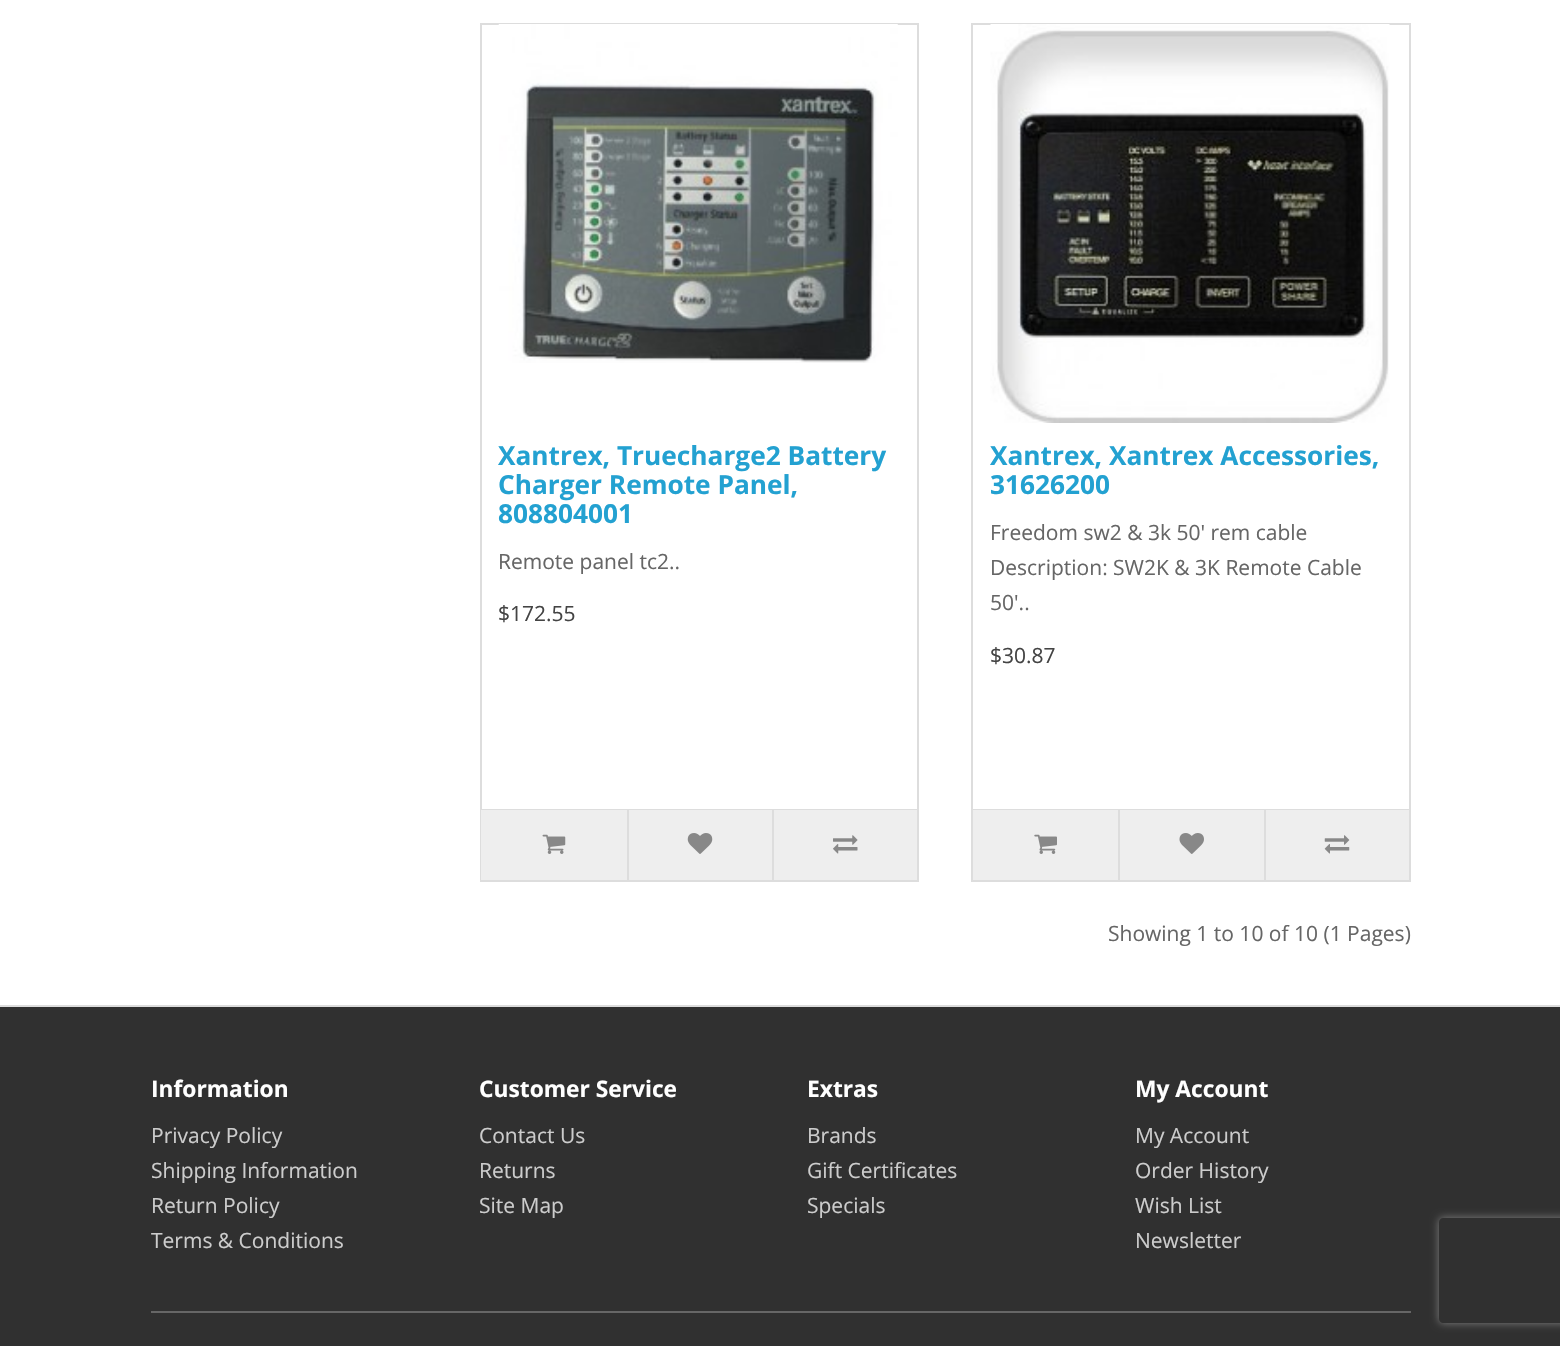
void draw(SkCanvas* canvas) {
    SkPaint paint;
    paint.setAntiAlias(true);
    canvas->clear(0xFFFFFFFF);
    paint.setStyle(SkPaint::kStroke_Style);
    paint.setStrokeWidth(2);
    paint.setColor(0xFFDDDDDD);
    canvas->drawRect(SkRect::MakeXYWH(481, 24, 437, 857), paint);
    canvas->drawImageRect(SkImages::DeferredFromEncodedData(SkData::MakeFromFileName("img1.png")), SkRect::MakeXYWH(498, 24, 400, 339), SkSamplingOptions());
    SkFont font1(fontMgr->matchFamilyStyle("Open Sans", SkFontStyle::Bold()), 26.25f);
    font1.setSubpixel(true);
    paint.setStyle(SkPaint::kFill_Style);
    paint.setColor(0xFF23A1D1);
    canvas->drawString("Xantrex, Truecharge2 Battery", 498, 465, font1, paint);
    canvas->drawString("Charger Remote Panel,", 498, 494, font1, paint);
    canvas->drawString("808804001", 498, 523, font1, paint);
    SkFont font2(fontMgr->matchFamilyStyle("Open Sans", SkFontStyle::Normal()), 21);
    font2.setSubpixel(true);
    paint.setColor(0xFF666666);
    canvas->drawString("Remote panel tc2..", 498, 569, font2, paint);
    paint.setColor(0xFF444444);
    canvas->drawString("$172.55", 498, 621, font2, paint);
    paint.setColor(0xFFDDDDDD);
    canvas->drawRect(SkRect::MakeXYWH(481, 809, 436, 1), paint);
    paint.setColor(0xFFEEEEEE);
    canvas->drawRect(SkRect::MakeXYWH(481, 810, 146, 70), paint);
    canvas->drawImageRect(SkImages::DeferredFromEncodedData(SkData::MakeFromFileName("img2.png")), SkRect::MakeXYWH(542, 834, 24, 20), SkSamplingOptions());
    canvas->drawRect(SkRect::MakeXYWH(629, 810, 143, 70), paint);
    paint.setColor(0xFFDDDDDD);
    canvas->drawRect(SkRect::MakeXYWH(627, 810, 2, 70), paint);
    canvas->drawImageRect(SkImages::DeferredFromEncodedData(SkData::MakeFromFileName("img3.png")), SkRect::MakeXYWH(687, 833, 26, 21), SkSamplingOptions());
    paint.setColor(0xFFEEEEEE);
    canvas->drawRect(SkRect::MakeXYWH(774, 810, 143, 70), paint);
    paint.setColor(0xFFDDDDDD);
    canvas->drawRect(SkRect::MakeXYWH(772, 810, 2, 70), paint);
    canvas->drawImageRect(SkImages::DeferredFromEncodedData(SkData::MakeFromFileName("img4.png")), SkRect::MakeXYWH(833, 835, 25, 19), SkSamplingOptions());
    paint.setStyle(SkPaint::kStroke_Style);
    canvas->drawRect(SkRect::MakeXYWH(972, 24, 438, 857), paint);
    canvas->drawImageRect(SkImages::DeferredFromEncodedData(SkData::MakeFromFileName("img5.png")), SkRect::MakeXYWH(990, 24, 400, 399), SkSamplingOptions());
    paint.setStyle(SkPaint::kFill_Style);
    paint.setColor(0xFF23A1D1);
    canvas->drawString("Xantrex, Xantrex Accessories,", 990, 465, font1, paint);
    canvas->drawString("31626200", 990, 494, font1, paint);
    paint.setColor(0xFF666666);
    canvas->drawString("Freedom sw2 & 3k 50' rem cable", 990, 540, font2, paint);
    canvas->drawString("Description: SW2K & 3K Remote Cable", 990, 575, font2, paint);
    canvas->drawString("50'..", 990, 610, font2, paint);
    paint.setColor(0xFF444444);
    canvas->drawString("$30.87", 990, 663, font2, paint);
    paint.setColor(0xFFDDDDDD);
    canvas->drawRect(SkRect::MakeXYWH(973, 809, 436, 1), paint);
    paint.setColor(0xFFEEEEEE);
    canvas->drawRect(SkRect::MakeXYWH(973, 810, 145, 70), paint);
    canvas->drawImageRect(SkImages::DeferredFromEncodedData(SkData::MakeFromFileName("img6.png")), SkRect::MakeXYWH(1034, 834, 23, 20), SkSamplingOptions());
    canvas->drawRect(SkRect::MakeXYWH(1120, 810, 144, 70), paint);
    paint.setColor(0xFFDDDDDD);
    canvas->drawRect(SkRect::MakeXYWH(1118, 810, 2, 70), paint);
    canvas->drawImageRect(SkImages::DeferredFromEncodedData(SkData::MakeFromFileName("img7.png")), SkRect::MakeXYWH(1179, 833, 25, 21), SkSamplingOptions());
    paint.setColor(0xFFEEEEEE);
    canvas->drawRect(SkRect::MakeXYWH(1266, 810, 143, 70), paint);
    paint.setColor(0xFFDDDDDD);
    canvas->drawRect(SkRect::MakeXYWH(1264, 810, 2, 70), paint);
    canvas->drawImageRect(SkImages::DeferredFromEncodedData(SkData::MakeFromFileName("img8.png")), SkRect::MakeXYWH(1324, 835, 26, 19), SkSamplingOptions());
    paint.setColor(0xFF666666);
    canvas->drawString("Showing 1 to 10 of 10 (1 Pages)", 1108, 941, font2, paint);
    paint.setColor(0xFF303030);
    canvas->drawRect(SkRect::MakeXYWH(0, 1007, 1560, 339), paint);
    paint.setColor(0xFFDDDDDD);
    canvas->drawRect(SkRect::MakeXYWH(0, 1005, 1560, 2), paint);
    SkFont font3(fontMgr->matchFamilyStyle("Open Sans", SkFontStyle::Bold()), 22.75f);
    font3.setSubpixel(true);
    paint.setColor(0xFFFFFFFF);
    canvas->drawString("Information", 151, 1097, font3, paint);
    paint.setColor(0xFFCCCCCC);
    canvas->drawString("Privacy Policy", 151, 1143, font2, paint);
    canvas->drawString("Shipping Information", 151, 1178, font2, paint);
    canvas->drawString("Return Policy", 151, 1213, font2, paint);
    canvas->drawString("Terms & Conditions", 151, 1248, font2, paint);
    paint.setColor(0xFFFFFFFF);
    canvas->drawString("Customer Service", 479, 1097, font3, paint);
    paint.setColor(0xFFCCCCCC);
    canvas->drawString("Contact Us", 479, 1143, font2, paint);
    canvas->drawString("Returns", 479, 1178, font2, paint);
    canvas->drawString("Site Map", 479, 1213, font2, paint);
    paint.setColor(0xFFFFFFFF);
    canvas->drawString("Extras", 807, 1097, font3, paint);
    paint.setColor(0xFFCCCCCC);
    canvas->drawString("Brands", 807, 1143, font2, paint);
    canvas->drawString("Gift Certificates", 807, 1178, font2, paint);
    canvas->drawString("Specials", 807, 1213, font2, paint);
    paint.setColor(0xFFFFFFFF);
    canvas->drawString("My Account", 1135, 1097, font3, paint);
    paint.setColor(0xFFCCCCCC);
    canvas->drawString("My Account", 1135, 1143, font2, paint);
    canvas->drawString("Order History", 1135, 1178, font2, paint);
    canvas->drawString("Wish List", 1135, 1213, font2, paint);
    canvas->drawString("Newsletter", 1135, 1248, font2, paint);
    paint.setColor(0xFF666666);
    canvas->drawRect(SkRect::MakeXYWH(151, 1311, 1260, 2), paint);
    canvas->save();
    canvas->clipPath(SkPathBuilder(SkPathFillType::kEvenOdd).moveTo(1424, 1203).lineTo(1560, 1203).lineTo(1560, 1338).lineTo(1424, 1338).close().moveTo(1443, 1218).lineTo(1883, 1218).cubicTo(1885, 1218, 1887, 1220, 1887, 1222).lineTo(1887, 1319).cubicTo(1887, 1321, 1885, 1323, 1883, 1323).lineTo(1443, 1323).cubicTo(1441, 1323, 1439, 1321, 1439, 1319).lineTo(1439, 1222).cubicTo(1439, 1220, 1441, 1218, 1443, 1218).close().detach(), true);
    paint.setColor(0xFF808080);
    paint.setMaskFilter(SkMaskFilter::MakeBlur(kNormal_SkBlurStyle, 4.5f));
    canvas->drawRoundRect(SkRect::MakeXYWH(1439, 1218, 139, 105), 4, 4, paint);
    paint.setMaskFilter(nullptr);
    canvas->restore();
}
